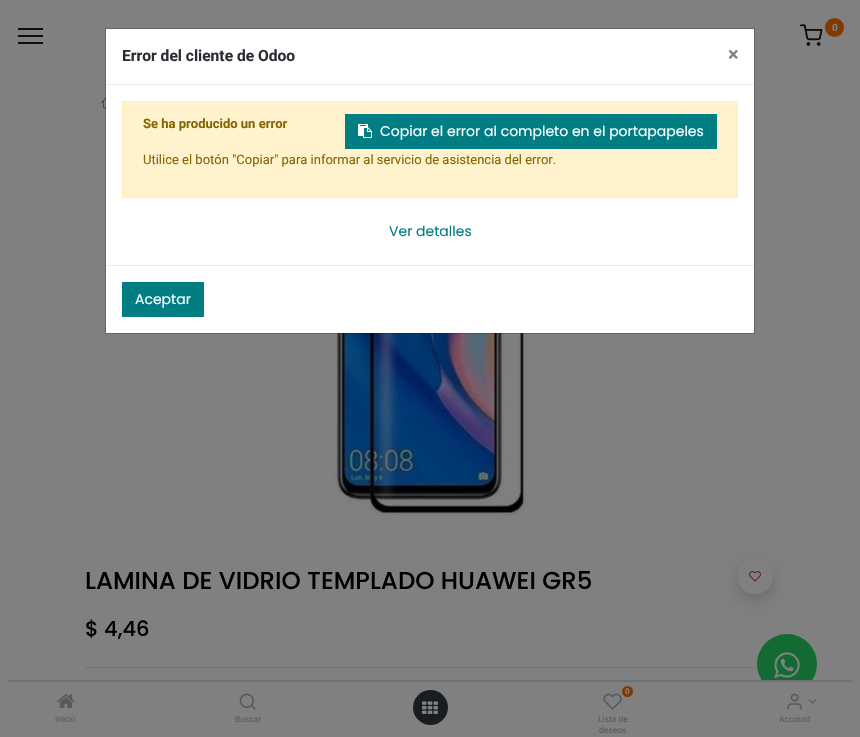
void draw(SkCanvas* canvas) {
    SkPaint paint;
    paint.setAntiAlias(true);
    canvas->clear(0xFF808080);
    paint.setColor(0xFF100D0A);
    canvas->drawRect(SkRect::MakeXYWH(18, 28, 25, 2), paint);
    canvas->drawRect(SkRect::MakeXYWH(18, 35, 25, 2), paint);
    canvas->drawRect(SkRect::MakeXYWH(18, 42, 25, 2), paint);
    canvas->drawImageRect(SkImages::DeferredFromEncodedData(SkData::MakeFromFileName("img1.png")), SkRect::MakeXYWH(800, 24, 23, 22), SkSamplingOptions());
    paint.setColor(0xFF803A00);
    canvas->drawCircle(834.5f, 27.5f, 9.5f, paint);
    SkFont font1(fontMgr->matchFamilyStyle("Roboto", SkFontStyle::Bold()), 10);
    font1.setSubpixel(true);
    paint.setColor(0xFF808080);
    canvas->drawString("0", 832, 31, font1, paint);
    canvas->drawImageRect(SkImages::DeferredFromEncodedData(SkData::MakeFromFileName("img2.png")), SkRect::MakeXYWH(101, 97, 5, 12), SkSamplingOptions());
    canvas->drawImageRect(SkImages::DeferredFromEncodedData(SkData::MakeFromFileName("img3.png")), SkRect::MakeXYWH(334, 333, 192, 183), SkSamplingOptions());
    SkFont font2(fontMgr->matchFamilyStyle("Poppins", SkFontStyle(500, SkFontStyle::kNormal_Width, SkFontStyle::kUpright_Slant)), 24.5f);
    font2.setSubpixel(true);
    paint.setColor(0xFF000000);
    canvas->drawString("LAMINA DE VIDRIO TEMPLADO HUAWEI GR5", 85, 589, font2, paint);
    paint.setColor(0x26000000);
    paint.setMaskFilter(SkMaskFilter::MakeBlur(kNormal_SkBlurStyle, 7));
    canvas->drawRoundRect(SkRect::MakeXYWH(737, 565, 36, 36), 18, 18, paint);
    paint.setMaskFilter(nullptr);
    paint.setColor(0xFF808080);
    canvas->drawCircle(755, 576, 18, paint);
    canvas->drawImageRect(SkImages::DeferredFromEncodedData(SkData::MakeFromFileName("img4.png")), SkRect::MakeXYWH(749, 571, 12, 11), SkSamplingOptions());
    SkFont font3(fontMgr->matchFamilyStyle("Poppins", SkFontStyle(500, SkFontStyle::kNormal_Width, SkFontStyle::kUpright_Slant)), 21);
    font3.setSubpixel(true);
    paint.setColor(0xFF000000);
    canvas->drawString("$ 4,46", 85, 636, font3, paint);
    paint.setColor(0xFF737373);
    canvas->drawRect(SkRect::MakeXYWH(85, 667, 673, 1), paint);
    paint.setColor(0xFF136A33);
    canvas->drawCircle(787, 664, 30, paint);
    canvas->drawImageRect(SkImages::DeferredFromEncodedData(SkData::MakeFromFileName("img5.png")), SkRect::MakeXYWH(774, 652, 26, 27), SkSamplingOptions());
    paint.setColor(0xFF808080);
    canvas->drawPath(SkPathBuilder().moveTo(16, 680).lineTo(844, 680).cubicTo(853, 680, 860, 687, 860, 696).lineTo(860, 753).lineTo(0, 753).lineTo(0, 696).cubicTo(0, 687, 7, 680, 16, 680).close().detach(), paint);
    paint.setColor(0xFF6F7173);
    canvas->drawRect(SkRect::MakeXYWH(8, 680, 844, 2), paint);
    canvas->drawImageRect(SkImages::DeferredFromEncodedData(SkData::MakeFromFileName("img6.png")), SkRect::MakeXYWH(57, 694, 18, 14), SkSamplingOptions());
    SkFont font4(fontMgr->matchFamilyStyle("Roboto", SkFontStyle::Normal()), 8.5f);
    font4.setSubpixel(true);
    paint.setColor(0xFF575B5F);
    canvas->drawString("Inicio", 55, 722, font4, paint);
    canvas->drawImageRect(SkImages::DeferredFromEncodedData(SkData::MakeFromFileName("img7.png")), SkRect::MakeXYWH(239, 693, 17, 17), SkSamplingOptions());
    canvas->drawString("Buscar", 235, 722, font4, paint);
    paint.setColor(0xFF1A1D20);
    canvas->drawCircle(430.5f, 707.5f, 17.5f, paint);
    canvas->drawImageRect(SkImages::DeferredFromEncodedData(SkData::MakeFromFileName("img8.png")), SkRect::MakeXYWH(422, 701, 16, 13), SkSamplingOptions());
    paint.setColor(0xFF803A00);
    canvas->drawCircle(627.5f, 691.5f, 5.5f, paint);
    SkFont font5(fontMgr->matchFamilyStyle("Roboto", SkFontStyle::Bold()), 8);
    font5.setSubpixel(true);
    paint.setColor(0xFF808080);
    canvas->drawString("0", 625, 694, font5, paint);
    canvas->drawImageRect(SkImages::DeferredFromEncodedData(SkData::MakeFromFileName("img9.png")), SkRect::MakeXYWH(603, 693, 19, 17), SkSamplingOptions());
    paint.setColor(0xFF575B5F);
    canvas->drawString("Lista de", 598, 722, font4, paint);
    canvas->drawString("deseos", 599, 733, font4, paint);
    canvas->drawImageRect(SkImages::DeferredFromEncodedData(SkData::MakeFromFileName("img10.png")), SkRect::MakeXYWH(787, 693, 15, 17), SkSamplingOptions());
    canvas->drawImageRect(SkImages::DeferredFromEncodedData(SkData::MakeFromFileName("img11.png")), SkRect::MakeXYWH(808, 699, 9, 5), SkSamplingOptions());
    canvas->drawString("Account", 779, 722, font4, paint);
    paint.setColor(0xFFFFFFFF);
    canvas->drawRect(SkRect::MakeXYWH(106, 29, 648, 304), paint);
    paint.setStyle(SkPaint::kStroke_Style);
    paint.setStrokeWidth(1);
    paint.setColor(0x33000000);
    canvas->drawRect(SkRect::MakeXYWH(105.5f, 28.5f, 649, 305), paint);
    paint.setStyle(SkPaint::kFill_Style);
    paint.setColor(0xFFE9ECEF);
    canvas->drawRect(SkRect::MakeXYWH(106, 84, 648, 1), paint);
    SkFont font6(fontMgr->matchFamilyStyle("Roboto", SkFontStyle::Bold()), 15.6f);
    font6.setSubpixel(true);
    paint.setColor(0xFF2B2B33);
    canvas->drawString("Error del cliente de Odoo", 122, 61, font6, paint);
    SkFont font7(fontMgr->matchFamilyStyle("Roboto", SkFontStyle::Bold()), 20);
    font7.setSubpixel(true);
    paint.setColor(0xFF808080);
    canvas->drawString("×", 728, 61, font7, paint);
    paint.setColor(0xFFFFF3CD);
    canvas->drawRect(SkRect::MakeXYWH(122.5f, 101.5f, 615, 96), paint);
    paint.setStyle(SkPaint::kStroke_Style);
    paint.setColor(0xFFFFEEBA);
    canvas->drawRect(SkRect::MakeXYWH(122.5f, 101.5f, 615, 96), paint);
    SkFont font8(fontMgr->matchFamilyStyle("Roboto", SkFontStyle::Bold()), 13);
    font8.setSubpixel(true);
    paint.setStyle(SkPaint::kFill_Style);
    paint.setColor(0xFF856404);
    canvas->drawString("Se ha producido un error", 143, 128, font8, paint);
    paint.setColor(0xFF017E84);
    canvas->drawRect(SkRect::MakeXYWH(345, 114, 372, 35), paint);
    canvas->drawImageRect(SkImages::DeferredFromEncodedData(SkData::MakeFromFileName("img12.png")), SkRect::MakeXYWH(358, 124, 14, 14), SkSamplingOptions());
    SkFont font9(fontMgr->matchFamilyStyle("Poppins", SkFontStyle::Normal()), 14);
    font9.setSubpixel(true);
    paint.setColor(0xFFFFFFFF);
    canvas->drawString("Copiar el error al completo en el portapapeles", 380, 136, font9, paint);
    SkFont font10(fontMgr->matchFamilyStyle("Roboto", SkFontStyle::Normal()), 13);
    font10.setSubpixel(true);
    paint.setColor(0xFF856404);
    canvas->drawString("Utilice el botón \"Copiar\" para informar al servicio de asistencia del error.", 143, 164, font10, paint);
    paint.setColor(0xFF017E84);
    canvas->drawString("Ver detalles", 389, 236, font9, paint);
    paint.setColor(0xFFE9ECEF);
    canvas->drawRect(SkRect::MakeXYWH(106, 265, 648, 1), paint);
    paint.setColor(0xFF017E84);
    canvas->drawRect(SkRect::MakeXYWH(122, 282, 82, 35), paint);
    paint.setColor(0xFFFFFFFF);
    canvas->drawString("Aceptar", 135, 304, font9, paint);
}
